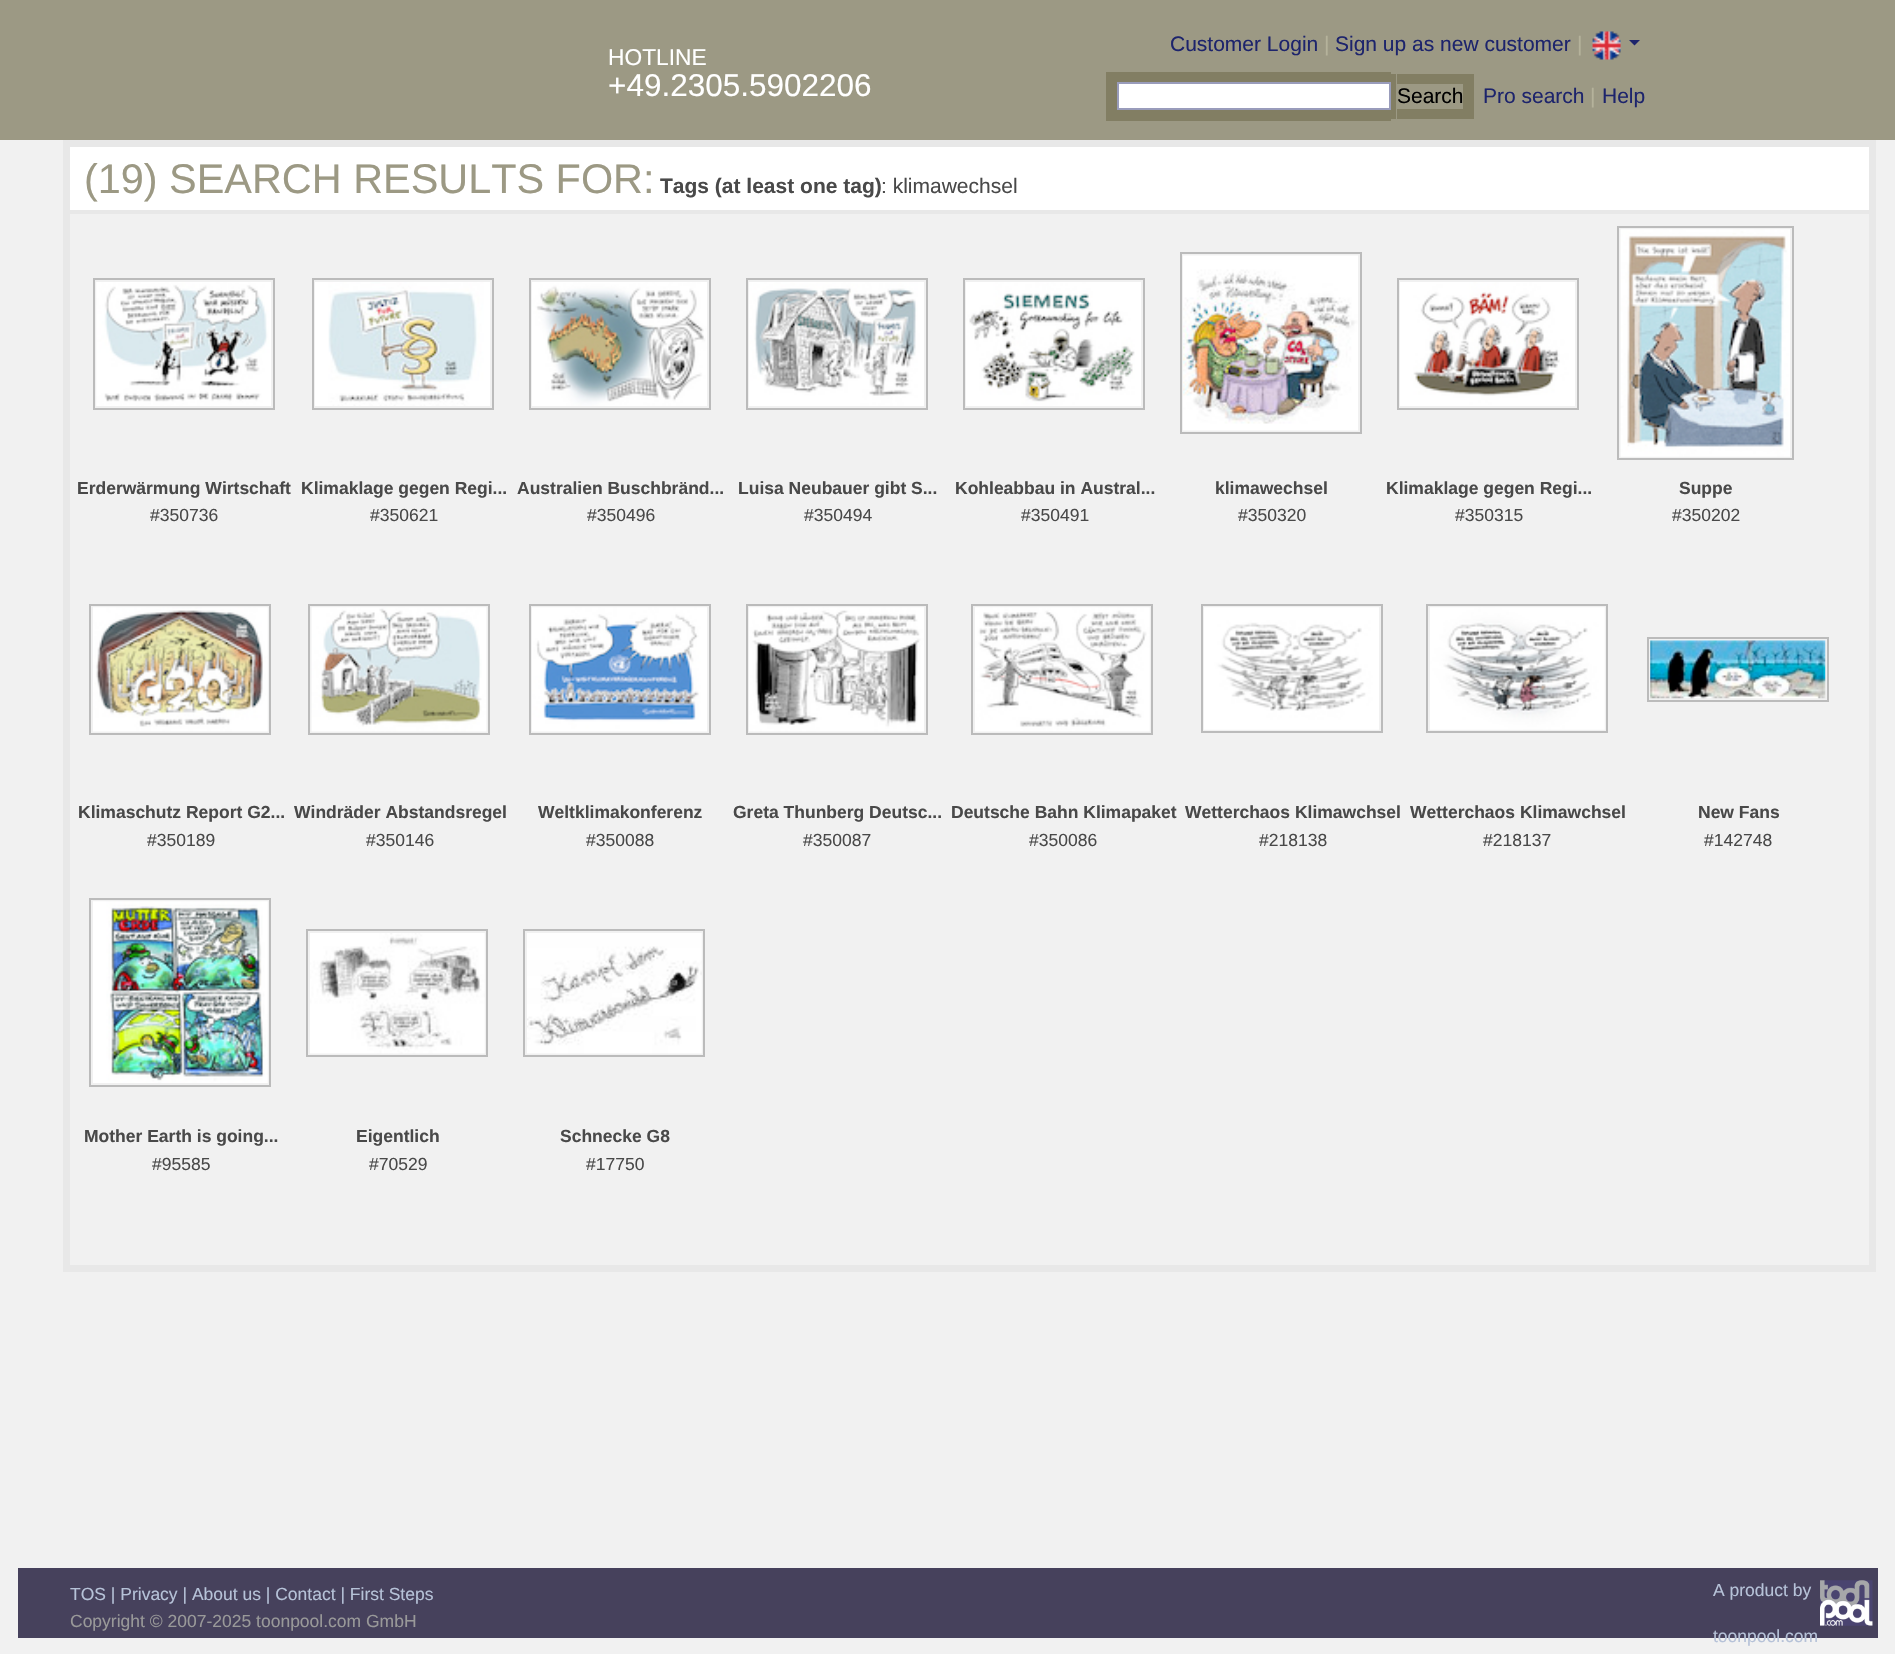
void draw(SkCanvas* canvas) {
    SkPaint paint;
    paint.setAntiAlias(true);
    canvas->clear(0xFFF1F1F1);
    paint.setColor(0xFF9C9984);
    canvas->drawRect(SkRect::MakeXYWH(0, 0, 1895, 140), paint);
    SkFont font1(fontMgr->matchFamilyStyle("Liberation Sans", SkFontStyle::Normal()), 21);
    font1.setSubpixel(true);
    paint.setColor(0xFF1D246C);
    canvas->drawString("Customer Login", 1170, 51, font1, paint);
    paint.setColor(0xFFB5B29B);
    canvas->drawString("|", 1324, 51, font1, paint);
    paint.setColor(0xFF1D246C);
    canvas->drawString("Sign up as new customer", 1335, 51, font1, paint);
    paint.setColor(0xFFB5B29B);
    canvas->drawString("|", 1577, 51, font1, paint);
    canvas->drawImageRect(SkImages::DeferredFromEncodedData(SkData::MakeFromFileName("img1.png")), SkRect::MakeXYWH(1592, 31, 29, 29), SkSamplingOptions());
    paint.setColor(0xFF1D246C);
    canvas->drawPath(SkPathBuilder().moveTo(1629, 40).lineTo(1640, 40).lineTo(1634.5f, 45.5f).close().detach(), paint);
    SkFont font2(fontMgr->matchFamilyStyle("Liberation Sans", SkFontStyle::Normal()), 22.75f);
    font2.setSubpixel(true);
    paint.setColor(0xFFFFFFFF);
    canvas->drawString("HOTLINE", 608, 65, font2, paint);
    SkFont font3(fontMgr->matchFamilyStyle("Liberation Sans", SkFontStyle::Normal()), 31.5f);
    font3.setSubpixel(true);
    canvas->drawString("+49.2305.5902206", 608, 96, font3, paint);
    paint.setColor(0xFF827E63);
    canvas->drawRect(SkRect::MakeXYWH(1106, 72, 285, 49), paint);
    canvas->drawRect(SkRect::MakeXYWH(1391, 74, 5, 45), paint);
    canvas->drawRect(SkRect::MakeXYWH(1397, 74, 77, 45), paint);
    paint.setColor(0xFFFFFFFF);
    canvas->drawRect(SkRect::MakeXYWH(1118, 83, 272, 26), paint);
    paint.setStyle(SkPaint::kStroke_Style);
    paint.setStrokeWidth(2);
    paint.setColor(0xFF999CBB);
    canvas->drawRect(SkRect::MakeXYWH(1118, 83, 272, 26), paint);
    paint.setStyle(SkPaint::kFill_Style);
    paint.setColor(0xFF9C9984);
    canvas->drawRect(SkRect::MakeXYWH(1397, 84, 66, 25), paint);
    paint.setColor(0xFF000000);
    canvas->drawString("Search", 1397, 103, font1, paint);
    paint.setColor(0xFF1D246C);
    canvas->drawString("Pro search", 1483, 103, font1, paint);
    paint.setColor(0xFFB5B29B);
    canvas->drawString("|", 1590, 103, font1, paint);
    paint.setColor(0xFF1D246C);
    canvas->drawString("Help", 1602, 103, font1, paint);
    paint.setStyle(SkPaint::kStroke_Style);
    paint.setStrokeWidth(7);
    paint.setColor(0xFFE8E8E8);
    canvas->drawRect(SkRect::MakeXYWH(66.5f, 143.5f, 1806, 1125), paint);
    paint.setStyle(SkPaint::kFill_Style);
    paint.setColor(0xFFFFFFFF);
    canvas->drawRect(SkRect::MakeXYWH(70, 147, 1799, 63), paint);
    SkFont font4(fontMgr->matchFamilyStyle("Liberation Sans", SkFontStyle::Normal()), 41.4f);
    font4.setSubpixel(true);
    paint.setColor(0xFF9C9984);
    canvas->drawString("(19) SEARCH RESULTS FOR:", 84, 193, font4, paint);
    SkFont font5(fontMgr->matchFamilyStyle("Liberation Sans", SkFontStyle::Bold()), 21);
    font5.setSubpixel(true);
    paint.setColor(0xFF494949);
    canvas->drawString("Tags (at least one tag)", 660, 193, font5, paint);
    canvas->drawString(": klimawechsel", 881, 193, font1, paint);
    paint.setColor(0xFFE8E8E8);
    canvas->drawRect(SkRect::MakeXYWH(70, 210, 1799, 4), paint);
    paint.setStyle(SkPaint::kStroke_Style);
    paint.setStrokeWidth(2);
    paint.setColor(0xFFBBBBBB);
    canvas->drawRect(SkRect::MakeXYWH(94, 279, 180, 130), paint);
    canvas->drawImageRect(SkImages::DeferredFromEncodedData(SkData::MakeFromFileName("img2.png")), SkRect::MakeXYWH(96, 282, 175, 124), SkSamplingOptions());
    SkFont font6(fontMgr->matchFamilyStyle("Liberation Sans", SkFontStyle::Bold()), 17.5f);
    font6.setSubpixel(true);
    paint.setStyle(SkPaint::kFill_Style);
    paint.setColor(0xFF494949);
    canvas->drawString("Erderwärmung Wirtschaft", 77, 494, font6, paint);
    SkFont font7(fontMgr->matchFamilyStyle("Liberation Sans", SkFontStyle::Normal()), 17.5f);
    font7.setSubpixel(true);
    canvas->drawString("#350736", 150, 521, font7, paint);
    paint.setStyle(SkPaint::kStroke_Style);
    paint.setColor(0xFFBBBBBB);
    canvas->drawRect(SkRect::MakeXYWH(313, 279, 180, 130), paint);
    canvas->drawImageRect(SkImages::DeferredFromEncodedData(SkData::MakeFromFileName("img3.png")), SkRect::MakeXYWH(315, 282, 175, 124), SkSamplingOptions());
    paint.setStyle(SkPaint::kFill_Style);
    paint.setColor(0xFF494949);
    canvas->drawString("Klimaklage gegen Regi...", 301, 494, font6, paint);
    canvas->drawString("#350621", 370, 521, font7, paint);
    paint.setStyle(SkPaint::kStroke_Style);
    paint.setColor(0xFFBBBBBB);
    canvas->drawRect(SkRect::MakeXYWH(530, 279, 180, 130), paint);
    canvas->drawImageRect(SkImages::DeferredFromEncodedData(SkData::MakeFromFileName("img4.png")), SkRect::MakeXYWH(532, 282, 175, 124), SkSamplingOptions());
    paint.setStyle(SkPaint::kFill_Style);
    paint.setColor(0xFF494949);
    canvas->drawString("Australien Buschbränd...", 517, 494, font6, paint);
    canvas->drawString("#350496", 587, 521, font7, paint);
    paint.setStyle(SkPaint::kStroke_Style);
    paint.setColor(0xFFBBBBBB);
    canvas->drawRect(SkRect::MakeXYWH(747, 279, 180, 130), paint);
    canvas->drawImageRect(SkImages::DeferredFromEncodedData(SkData::MakeFromFileName("img5.png")), SkRect::MakeXYWH(749, 282, 175, 124), SkSamplingOptions());
    paint.setStyle(SkPaint::kFill_Style);
    paint.setColor(0xFF494949);
    canvas->drawString("Luisa Neubauer gibt S...", 738, 494, font6, paint);
    canvas->drawString("#350494", 804, 521, font7, paint);
    paint.setStyle(SkPaint::kStroke_Style);
    paint.setColor(0xFFBBBBBB);
    canvas->drawRect(SkRect::MakeXYWH(964, 279, 180, 130), paint);
    canvas->drawImageRect(SkImages::DeferredFromEncodedData(SkData::MakeFromFileName("img6.png")), SkRect::MakeXYWH(966, 282, 175, 124), SkSamplingOptions());
    paint.setStyle(SkPaint::kFill_Style);
    paint.setColor(0xFF494949);
    canvas->drawString("Kohleabbau in Austral...", 955, 494, font6, paint);
    canvas->drawString("#350491", 1021, 521, font7, paint);
    paint.setStyle(SkPaint::kStroke_Style);
    paint.setColor(0xFFBBBBBB);
    canvas->drawRect(SkRect::MakeXYWH(1181, 253, 180, 180), paint);
    canvas->drawImageRect(SkImages::DeferredFromEncodedData(SkData::MakeFromFileName("img7.png")), SkRect::MakeXYWH(1183, 255, 175, 176), SkSamplingOptions());
    paint.setStyle(SkPaint::kFill_Style);
    paint.setColor(0xFF494949);
    canvas->drawString("klimawechsel", 1215, 494, font6, paint);
    canvas->drawString("#350320", 1238, 521, font7, paint);
    paint.setStyle(SkPaint::kStroke_Style);
    paint.setColor(0xFFBBBBBB);
    canvas->drawRect(SkRect::MakeXYWH(1398, 279, 180, 130), paint);
    canvas->drawImageRect(SkImages::DeferredFromEncodedData(SkData::MakeFromFileName("img8.png")), SkRect::MakeXYWH(1400, 282, 175, 124), SkSamplingOptions());
    paint.setStyle(SkPaint::kFill_Style);
    paint.setColor(0xFF494949);
    canvas->drawString("Klimaklage gegen Regi...", 1386, 494, font6, paint);
    canvas->drawString("#350315", 1455, 521, font7, paint);
    paint.setStyle(SkPaint::kStroke_Style);
    paint.setColor(0xFFBBBBBB);
    canvas->drawRect(SkRect::MakeXYWH(1618, 227, 175, 232), paint);
    canvas->drawImageRect(SkImages::DeferredFromEncodedData(SkData::MakeFromFileName("img9.png")), SkRect::MakeXYWH(1620, 229, 170, 228), SkSamplingOptions());
    paint.setStyle(SkPaint::kFill_Style);
    paint.setColor(0xFF494949);
    canvas->drawString("Suppe", 1679, 494, font6, paint);
    canvas->drawString("#350202", 1672, 521, font7, paint);
    paint.setStyle(SkPaint::kStroke_Style);
    paint.setColor(0xFFBBBBBB);
    canvas->drawRect(SkRect::MakeXYWH(90, 605, 180, 129), paint);
    canvas->drawImageRect(SkImages::DeferredFromEncodedData(SkData::MakeFromFileName("img10.png")), SkRect::MakeXYWH(93, 607, 175, 125), SkSamplingOptions());
    paint.setStyle(SkPaint::kFill_Style);
    paint.setColor(0xFF494949);
    canvas->drawString("Klimaschutz Report G2...", 78, 818, font6, paint);
    canvas->drawString("#350189", 147, 846, font7, paint);
    paint.setStyle(SkPaint::kStroke_Style);
    paint.setColor(0xFFBBBBBB);
    canvas->drawRect(SkRect::MakeXYWH(309, 605, 180, 129), paint);
    canvas->drawImageRect(SkImages::DeferredFromEncodedData(SkData::MakeFromFileName("img11.png")), SkRect::MakeXYWH(311, 607, 176, 125), SkSamplingOptions());
    paint.setStyle(SkPaint::kFill_Style);
    paint.setColor(0xFF494949);
    canvas->drawString("Windräder Abstandsregel", 294, 818, font6, paint);
    canvas->drawString("#350146", 366, 846, font7, paint);
    paint.setStyle(SkPaint::kStroke_Style);
    paint.setColor(0xFFBBBBBB);
    canvas->drawRect(SkRect::MakeXYWH(530, 605, 180, 129), paint);
    canvas->drawImageRect(SkImages::DeferredFromEncodedData(SkData::MakeFromFileName("img12.png")), SkRect::MakeXYWH(532, 607, 175, 125), SkSamplingOptions());
    paint.setStyle(SkPaint::kFill_Style);
    paint.setColor(0xFF494949);
    canvas->drawString("Weltklimakonferenz", 538, 818, font6, paint);
    canvas->drawString("#350088", 586, 846, font7, paint);
    paint.setStyle(SkPaint::kStroke_Style);
    paint.setColor(0xFFBBBBBB);
    canvas->drawRect(SkRect::MakeXYWH(747, 605, 180, 129), paint);
    canvas->drawImageRect(SkImages::DeferredFromEncodedData(SkData::MakeFromFileName("img13.png")), SkRect::MakeXYWH(749, 607, 175, 125), SkSamplingOptions());
    paint.setStyle(SkPaint::kFill_Style);
    paint.setColor(0xFF494949);
    canvas->drawString("Greta Thunberg Deutsc...", 733, 818, font6, paint);
    canvas->drawString("#350087", 803, 846, font7, paint);
    paint.setStyle(SkPaint::kStroke_Style);
    paint.setColor(0xFFBBBBBB);
    canvas->drawRect(SkRect::MakeXYWH(972, 605, 180, 129), paint);
    canvas->drawImageRect(SkImages::DeferredFromEncodedData(SkData::MakeFromFileName("img14.png")), SkRect::MakeXYWH(975, 607, 175, 125), SkSamplingOptions());
    paint.setStyle(SkPaint::kFill_Style);
    paint.setColor(0xFF494949);
    canvas->drawString("Deutsche Bahn Klimapaket", 951, 818, font6, paint);
    canvas->drawString("#350086", 1029, 846, font7, paint);
    paint.setStyle(SkPaint::kStroke_Style);
    paint.setColor(0xFFBBBBBB);
    canvas->drawRect(SkRect::MakeXYWH(1202, 605, 180, 127), paint);
    canvas->drawImageRect(SkImages::DeferredFromEncodedData(SkData::MakeFromFileName("img15.png")), SkRect::MakeXYWH(1204, 607, 175, 123), SkSamplingOptions());
    paint.setStyle(SkPaint::kFill_Style);
    paint.setColor(0xFF494949);
    canvas->drawString("Wetterchaos Klimawchsel", 1185, 818, font6, paint);
    canvas->drawString("#218138", 1259, 846, font7, paint);
    paint.setStyle(SkPaint::kStroke_Style);
    paint.setColor(0xFFBBBBBB);
    canvas->drawRect(SkRect::MakeXYWH(1427, 605, 180, 127), paint);
    canvas->drawImageRect(SkImages::DeferredFromEncodedData(SkData::MakeFromFileName("img16.png")), SkRect::MakeXYWH(1430, 607, 175, 123), SkSamplingOptions());
    paint.setStyle(SkPaint::kFill_Style);
    paint.setColor(0xFF494949);
    canvas->drawString("Wetterchaos Klimawchsel", 1410, 818, font6, paint);
    canvas->drawString("#218137", 1483, 846, font7, paint);
    paint.setStyle(SkPaint::kStroke_Style);
    paint.setColor(0xFFBBBBBB);
    canvas->drawRect(SkRect::MakeXYWH(1648, 638, 180, 63), paint);
    canvas->drawImageRect(SkImages::DeferredFromEncodedData(SkData::MakeFromFileName("img17.png")), SkRect::MakeXYWH(1650, 640, 176, 59), SkSamplingOptions());
    paint.setStyle(SkPaint::kFill_Style);
    paint.setColor(0xFF494949);
    canvas->drawString("New Fans", 1698, 818, font6, paint);
    canvas->drawString("#142748", 1704, 846, font7, paint);
    paint.setStyle(SkPaint::kStroke_Style);
    paint.setColor(0xFFBBBBBB);
    canvas->drawRect(SkRect::MakeXYWH(90, 899, 180, 187), paint);
    canvas->drawImageRect(SkImages::DeferredFromEncodedData(SkData::MakeFromFileName("img18.png")), SkRect::MakeXYWH(93, 901, 175, 182), SkSamplingOptions());
    paint.setStyle(SkPaint::kFill_Style);
    paint.setColor(0xFF494949);
    canvas->drawString("Mother Earth is going...", 84, 1142, font6, paint);
    canvas->drawString("#95585", 152, 1170, font7, paint);
    paint.setStyle(SkPaint::kStroke_Style);
    paint.setColor(0xFFBBBBBB);
    canvas->drawRect(SkRect::MakeXYWH(307, 930, 180, 126), paint);
    canvas->drawImageRect(SkImages::DeferredFromEncodedData(SkData::MakeFromFileName("img19.png")), SkRect::MakeXYWH(310, 933, 175, 121), SkSamplingOptions());
    paint.setStyle(SkPaint::kFill_Style);
    paint.setColor(0xFF494949);
    canvas->drawString("Eigentlich", 356, 1142, font6, paint);
    canvas->drawString("#70529", 369, 1170, font7, paint);
    paint.setStyle(SkPaint::kStroke_Style);
    paint.setColor(0xFFBBBBBB);
    canvas->drawRect(SkRect::MakeXYWH(524, 930, 180, 126), paint);
    canvas->drawImageRect(SkImages::DeferredFromEncodedData(SkData::MakeFromFileName("img20.png")), SkRect::MakeXYWH(527, 933, 175, 121), SkSamplingOptions());
    paint.setStyle(SkPaint::kFill_Style);
    paint.setColor(0xFF494949);
    canvas->drawString("Schnecke G8", 560, 1142, font6, paint);
    canvas->drawString("#17750", 586, 1170, font7, paint);
    paint.setColor(0xFF46415C);
    canvas->drawRect(SkRect::MakeXYWH(18, 1568, 1860, 70), paint);
    paint.setColor(0xFFB6C2D8);
    canvas->drawString("TOS | Privacy | About us | Contact | First Steps", 70, 1600, font7, paint);
    paint.setColor(0xFF999999);
    canvas->drawString("Copyright © 2007-2025 toonpool.com GmbH", 70, 1627, font7, paint);
    paint.setColor(0xFFB6C2D8);
    canvas->drawString("A product by", 1713, 1596, font7, paint);
    canvas->drawImageRect(SkImages::DeferredFromEncodedData(SkData::MakeFromFileName("img21.png")), SkRect::MakeXYWH(1820, 1580, 53, 46), SkSamplingOptions());
    canvas->drawString("toonpool.com", 1713, 1642, font7, paint);
}
